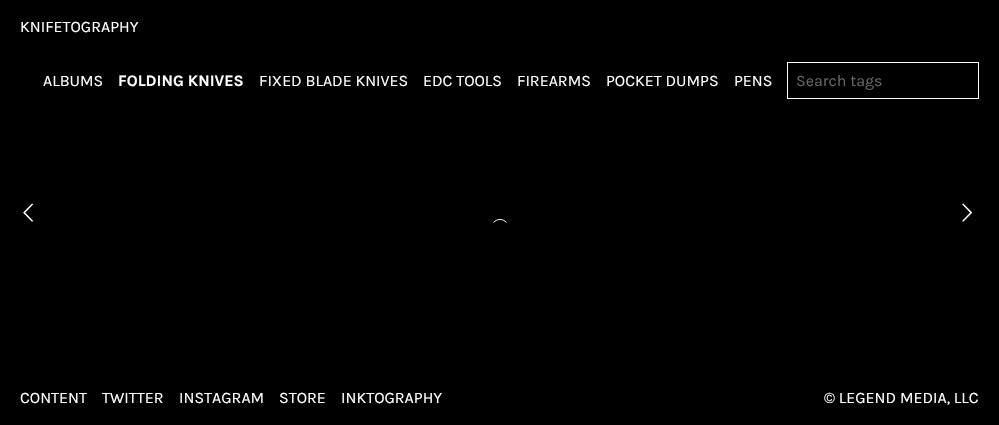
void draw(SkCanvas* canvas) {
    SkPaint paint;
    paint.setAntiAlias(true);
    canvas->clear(0xFF000000);
    SkFont font1(fontMgr->matchFamilyStyle("Karla", SkFontStyle::Normal()), 16);
    font1.setSubpixel(true);
    paint.setColor(0xFFFFFFFF);
    canvas->drawString("KNIFETOGRAPHY", 20, 32, font1, paint);
    canvas->drawString("ALBUMS", 43, 86, font1, paint);
    SkFont font2(fontMgr->matchFamilyStyle("Karla", SkFontStyle::Bold()), 16);
    font2.setSubpixel(true);
    canvas->drawString("FOLDING KNIVES", 118, 86, font2, paint);
    canvas->drawString("FIXED BLADE KNIVES", 259, 86, font1, paint);
    canvas->drawString("EDC TOOLS", 423, 86, font1, paint);
    canvas->drawString("FIREARMS", 517, 86, font1, paint);
    canvas->drawString("POCKET DUMPS", 606, 86, font1, paint);
    canvas->drawString("PENS", 734, 86, font1, paint);
    paint.setStyle(SkPaint::kStroke_Style);
    paint.setStrokeWidth(1);
    canvas->drawRect(SkRect::MakeXYWH(787.5f, 62.5f, 191, 36), paint);
    paint.setStyle(SkPaint::kFill_Style);
    paint.setColor(0xFF666666);
    canvas->drawString("Search tags", 796, 86, font1, paint);
    canvas->drawImageRect(SkImages::DeferredFromEncodedData(SkData::MakeFromFileName("img1.png")), SkRect::MakeXYWH(23, 203, 10, 19), SkSamplingOptions());
    canvas->drawImageRect(SkImages::DeferredFromEncodedData(SkData::MakeFromFileName("img2.png")), SkRect::MakeXYWH(962, 203, 10, 19), SkSamplingOptions());
    paint.setStyle(SkPaint::kStroke_Style);
    paint.setColor(0xFFFFFFFF);
    canvas->drawPath(SkPathBuilder().moveTo(493.5f, 222.5f).cubicTo(497, 218.5f, 503, 218.5f, 506.5f, 222.5f).detach(), paint);
    paint.setStyle(SkPaint::kFill_Style);
    canvas->drawString("CONTENT", 20, 403, font1, paint);
    canvas->drawString("TWITTER", 102, 403, font1, paint);
    canvas->drawString("INSTAGRAM", 179, 403, font1, paint);
    canvas->drawString("STORE", 279, 403, font1, paint);
    canvas->drawString("INKTOGRAPHY", 341, 403, font1, paint);
    canvas->drawString("© LEGEND MEDIA, LLC", 824, 403, font1, paint);
}
